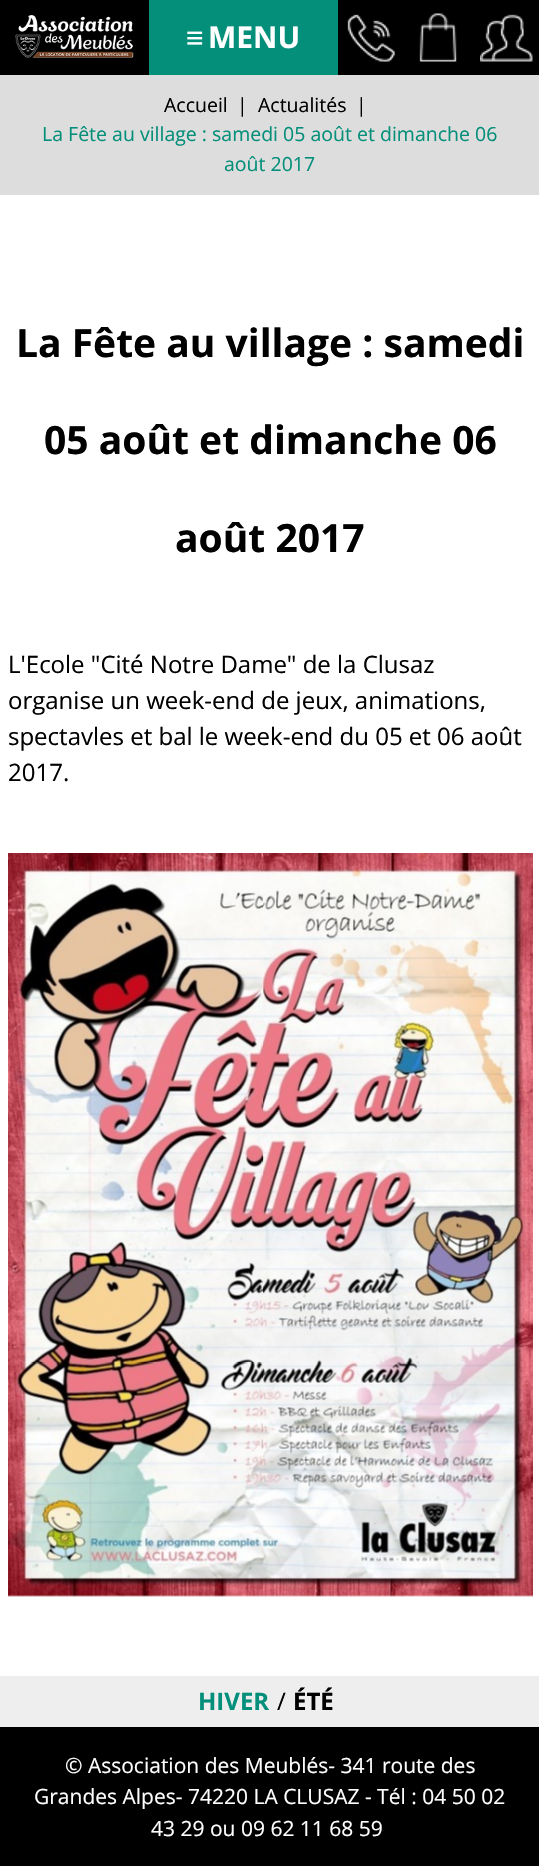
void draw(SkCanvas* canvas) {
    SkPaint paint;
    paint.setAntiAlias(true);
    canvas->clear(0xFFFFFFFF);
    paint.setColor(0xFF048F7A);
    canvas->drawRect(SkRect::MakeXYWH(149, 0, 189, 75), paint);
    paint.setColor(0xFF000000);
    canvas->drawRect(SkRect::MakeXYWH(0, 0, 149, 75), paint);
    canvas->drawImageRect(SkImages::DeferredFromEncodedData(SkData::MakeFromFileName("img1.png")), SkRect::MakeXYWH(15, 15, 119, 43), SkSamplingOptions());
    SkFont font1(fontMgr->matchFamilyStyle("Liberation Sans", SkFontStyle::Bold()), 30);
    font1.setSubpixel(true);
    paint.setColor(0xFFFFFFFF);
    canvas->drawString("≡", 186, 48, font1, paint);
    SkFont font2(fontMgr->matchFamilyStyle("Open Sans", SkFontStyle::Bold()), 30);
    font2.setSubpixel(true);
    canvas->drawString("MENU", 208, 48, font2, paint);
    paint.setColor(0xFF000000);
    canvas->drawRect(SkRect::MakeXYWH(338, 0, 201, 75), paint);
    canvas->drawImageRect(SkImages::DeferredFromEncodedData(SkData::MakeFromFileName("img2.png")), SkRect::MakeXYWH(347, 14, 48, 48), SkSamplingOptions());
    canvas->drawImageRect(SkImages::DeferredFromEncodedData(SkData::MakeFromFileName("img3.png")), SkRect::MakeXYWH(419, 13, 38, 49), SkSamplingOptions());
    canvas->drawImageRect(SkImages::DeferredFromEncodedData(SkData::MakeFromFileName("img4.png")), SkRect::MakeXYWH(480, 14, 53, 48), SkSamplingOptions());
    paint.setColor(0xFFDDDDDD);
    canvas->drawRect(SkRect::MakeXYWH(0, 75, 539, 120), paint);
    SkFont font3(fontMgr->matchFamilyStyle("Open Sans", SkFontStyle::Normal()), 19.5f);
    font3.setSubpixel(true);
    paint.setColor(0xFF000000);
    canvas->drawString("Accueil", 164, 112, font3, paint);
    canvas->drawString("|", 237, 112, font3, paint);
    canvas->drawString("Actualités", 258, 112, font3, paint);
    canvas->drawString("|", 356, 112, font3, paint);
    paint.setColor(0xFF048F7A);
    canvas->drawString("La Fête au village : samedi 05 août et dimanche 06", 42, 141, font3, paint);
    canvas->drawString("août 2017", 224, 171, font3, paint);
    SkFont font4(fontMgr->matchFamilyStyle("Open Sans", SkFontStyle::Bold()), 39);
    font4.setSubpixel(true);
    paint.setColor(0xFF000000);
    canvas->drawString("La Fête au village : samedi", 16, 357, font4, paint);
    canvas->drawString("05 août et dimanche 06", 44, 454, font4, paint);
    canvas->drawString("août 2017", 175, 552, font4, paint);
    SkFont font5(fontMgr->matchFamilyStyle("Open Sans", SkFontStyle::Normal()), 24);
    font5.setSubpixel(true);
    canvas->drawString("L'Ecole \"Cité Notre Dame\" de la Clusaz", 8, 673, font5, paint);
    canvas->drawString("organise un week-end de jeux, animations,", 8, 709, font5, paint);
    canvas->drawString("spectavles et bal le week-end du 05 et 06 août", 8, 745, font5, paint);
    canvas->drawString("2017.", 8, 781, font5, paint);
    canvas->drawImageRect(SkImages::DeferredFromEncodedData(SkData::MakeFromFileName("img5.png")), SkRect::MakeXYWH(8, 853, 525, 744), SkSamplingOptions());
    paint.setColor(0xFFEEEEEE);
    canvas->drawRect(SkRect::MakeXYWH(0, 1676, 539, 51), paint);
    SkFont font6(fontMgr->matchFamilyStyle("Open Sans", SkFontStyle::Bold()), 24);
    font6.setSubpixel(true);
    paint.setColor(0xFF048F7A);
    canvas->drawString("HIVER", 198, 1710, font6, paint);
    paint.setColor(0xFF000000);
    canvas->drawString("/", 277, 1710, font5, paint);
    canvas->drawString("ÉTÉ", 293, 1710, font6, paint);
    canvas->drawRect(SkRect::MakeXYWH(0, 1727, 539, 139), paint);
    SkFont font7(fontMgr->matchFamilyStyle("Open Sans", SkFontStyle::Normal()), 21);
    font7.setSubpixel(true);
    paint.setColor(0xFFFFFFFF);
    canvas->drawString("© Association des Meublés- 341 route des", 65, 1773, font7, paint);
    canvas->drawString("Grandes Alpes- 74220 LA CLUSAZ - Tél : 04 50 02", 34, 1804, font7, paint);
    canvas->drawString("43 29 ou 09 62 11 68 59", 151, 1836, font7, paint);
}
